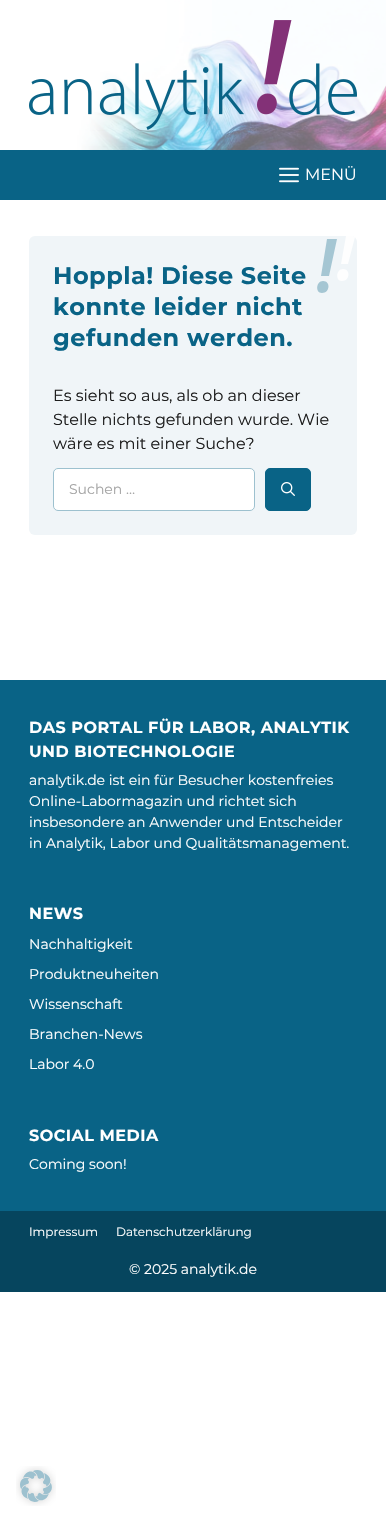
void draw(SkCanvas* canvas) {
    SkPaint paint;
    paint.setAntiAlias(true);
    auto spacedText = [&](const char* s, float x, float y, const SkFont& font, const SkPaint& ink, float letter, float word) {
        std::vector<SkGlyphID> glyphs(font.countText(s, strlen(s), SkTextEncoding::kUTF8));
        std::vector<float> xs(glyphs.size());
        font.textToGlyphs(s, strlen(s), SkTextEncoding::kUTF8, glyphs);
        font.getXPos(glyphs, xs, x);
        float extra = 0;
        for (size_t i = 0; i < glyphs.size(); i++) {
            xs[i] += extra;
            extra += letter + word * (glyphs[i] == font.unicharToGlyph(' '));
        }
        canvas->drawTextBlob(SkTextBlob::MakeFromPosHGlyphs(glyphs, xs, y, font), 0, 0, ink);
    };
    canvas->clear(0xFFFFFFFF);
    canvas->drawImageRect(SkImages::DeferredFromEncodedData(SkData::MakeFromFileName("img1.png")), SkRect::MakeXYWH(0, 0, 386, 150), SkSamplingOptions());
    canvas->drawImageRect(SkImages::DeferredFromEncodedData(SkData::MakeFromFileName("img2.png")), SkRect::MakeXYWH(29, 20, 328, 110), SkSamplingOptions());
    paint.setColor(0xFF096386);
    canvas->drawRect(SkRect::MakeXYWH(0, 150, 386, 50), paint);
    canvas->drawImageRect(SkImages::DeferredFromEncodedData(SkData::MakeFromFileName("img3.png")), SkRect::MakeXYWH(279, 167, 20, 16), SkSamplingOptions());
    SkFont font1(fontMgr->matchFamilyStyle("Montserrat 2", SkFontStyle(100, SkFontStyle::kNormal_Width, SkFontStyle::kUpright_Slant)), 16);
    font1.setSubpixel(true);
    paint.setColor(0xFFFFFFFF);
    canvas->drawString("MENÜ", 305, 180, font1, paint);
    paint.setColor(0xFFF0F5F8);
    canvas->drawRoundRect(SkRect::MakeXYWH(29, 236, 328, 299), 6, 6, paint);
    SkFont font2(fontMgr->matchFamilyStyle("Montserrat", SkFontStyle(100, SkFontStyle::kNormal_Width, SkFontStyle::kUpright_Slant)), 24);
    font2.setSubpixel(true);
    paint.setColor(0xFF096386);
    spacedText("Hoppla! Diese Seite", 53, 284, font2, paint, 0.5f, 0);
    spacedText("konnte leider nicht", 53, 315, font2, paint, 0.5f, 0);
    spacedText("gefunden werden.", 53, 346, font2, paint, 0.5f, 0);
    paint.setColor(0xFFA5C6D3);
    canvas->drawPath(SkPathBuilder().moveTo(322, 293).cubicTo(330, 293, 331, 281, 323, 281).cubicTo(316, 281, 315, 293, 322, 293).moveTo(329, 276).lineTo(337, 239).lineTo(327, 239).lineTo(321, 276).close().detach(), paint);
    paint.setColor(0xE6FFFFFF);
    canvas->drawPath(SkPathBuilder(SkPathFillType::kEvenOdd).moveTo(348, 264).lineTo(341, 264).lineTo(346, 236).cubicTo(348, 236, 352, 235, 355, 237).close().moveTo(342, 281).cubicTo(335, 281, 336, 269, 343, 269).cubicTo(351, 269, 350, 281, 342, 281).close().detach(), paint);
    paint.setColor(0xFF1E1E1E);
    canvas->drawString("Es sieht so aus, als ob an dieser", 53, 401, font1, paint);
    canvas->drawString("Stelle nichts gefunden wurde. Wie", 53, 425, font1, paint);
    canvas->drawString("wäre es mit einer Suche?", 53, 449, font1, paint);
    paint.setColor(0xFFFFFFFF);
    canvas->drawRoundRect(SkRect::MakeXYWH(53.5f, 468.5f, 201, 42), 4.5f, 4.5f, paint);
    paint.setStyle(SkPaint::kStroke_Style);
    paint.setStrokeWidth(1);
    paint.setColor(0xFF9DC1CF);
    canvas->drawRoundRect(SkRect::MakeXYWH(53.5f, 468.5f, 201, 42), 4.5f, 4.5f, paint);
    SkFont font3(fontMgr->matchFamilyStyle("Montserrat 2", SkFontStyle(100, SkFontStyle::kNormal_Width, SkFontStyle::kUpright_Slant)), 14);
    font3.setSubpixel(true);
    paint.setStyle(SkPaint::kFill_Style);
    paint.setColor(0xFFA5A5A5);
    canvas->drawString("Suchen …", 69, 494, font3, paint);
    paint.setColor(0xFF096386);
    canvas->drawRoundRect(SkRect::MakeXYWH(265.5f, 468.5f, 45, 42), 4.5f, 4.5f, paint);
    paint.setStyle(SkPaint::kStroke_Style);
    canvas->drawRoundRect(SkRect::MakeXYWH(265.5f, 468.5f, 45, 42), 4.5f, 4.5f, paint);
    canvas->drawImageRect(SkImages::DeferredFromEncodedData(SkData::MakeFromFileName("img4.png")), SkRect::MakeXYWH(281, 482, 14, 14), SkSamplingOptions());
    paint.setStyle(SkPaint::kFill_Style);
    canvas->drawRect(SkRect::MakeXYWH(0, 680, 386, 531), paint);
    SkFont font4(fontMgr->matchFamilyStyle("Montserrat", SkFontStyle(100, SkFontStyle::kNormal_Width, SkFontStyle::kUpright_Slant)), 16);
    font4.setSubpixel(true);
    paint.setColor(0xFFFFFFFF);
    spacedText("DAS PORTAL FÜR LABOR, ANALYTIK", 29, 733, font4, paint, 0.5f, 0);
    spacedText("UND BIOTECHNOLOGIE", 29, 757, font4, paint, 0.5f, 0);
    canvas->drawString("analytik.de ist ein für Besucher kostenfreies", 29, 785, font3, paint);
    canvas->drawString("Online-Labormagazin und richtet sich", 29, 806, font3, paint);
    canvas->drawString("insbesondere an Anwender und Entscheider", 29, 827, font3, paint);
    canvas->drawString("in Analytik, Labor und Qualitätsmanagement.", 29, 848, font3, paint);
    spacedText("NEWS", 29, 919, font4, paint, 0.5f, 0);
    canvas->drawString("Nachhaltigkeit", 29, 949, font3, paint);
    canvas->drawString("Produktneuheiten", 29, 979, font3, paint);
    canvas->drawString("Wissenschaft", 29, 1009, font3, paint);
    canvas->drawString("Branchen-News", 29, 1039, font3, paint);
    canvas->drawString("Labor 4.0", 29, 1069, font3, paint);
    spacedText("SOCIAL MEDIA", 29, 1141, font4, paint, 0.5f, 0);
    canvas->drawString("Coming soon!", 29, 1169, font3, paint);
    paint.setColor(0xFF06455E);
    canvas->drawRect(SkRect::MakeXYWH(0, 1211, 386, 81), paint);
    SkFont font5(fontMgr->matchFamilyStyle("Montserrat 2", SkFontStyle(100, SkFontStyle::kNormal_Width, SkFontStyle::kUpright_Slant)), 12);
    font5.setSubpixel(true);
    paint.setColor(0xFFFFFFFF);
    canvas->drawString("Impressum", 29, 1236, font5, paint);
    canvas->drawString("Datenschutzerklärung", 116, 1236, font5, paint);
    canvas->drawString("© 2025 analytik.de", 129, 1274, font3, paint);
    canvas->drawImageRect(SkImages::DeferredFromEncodedData(SkData::MakeFromFileName("img5.png")), SkRect::MakeXYWH(16, 1466, 40, 40), SkSamplingOptions());
}
